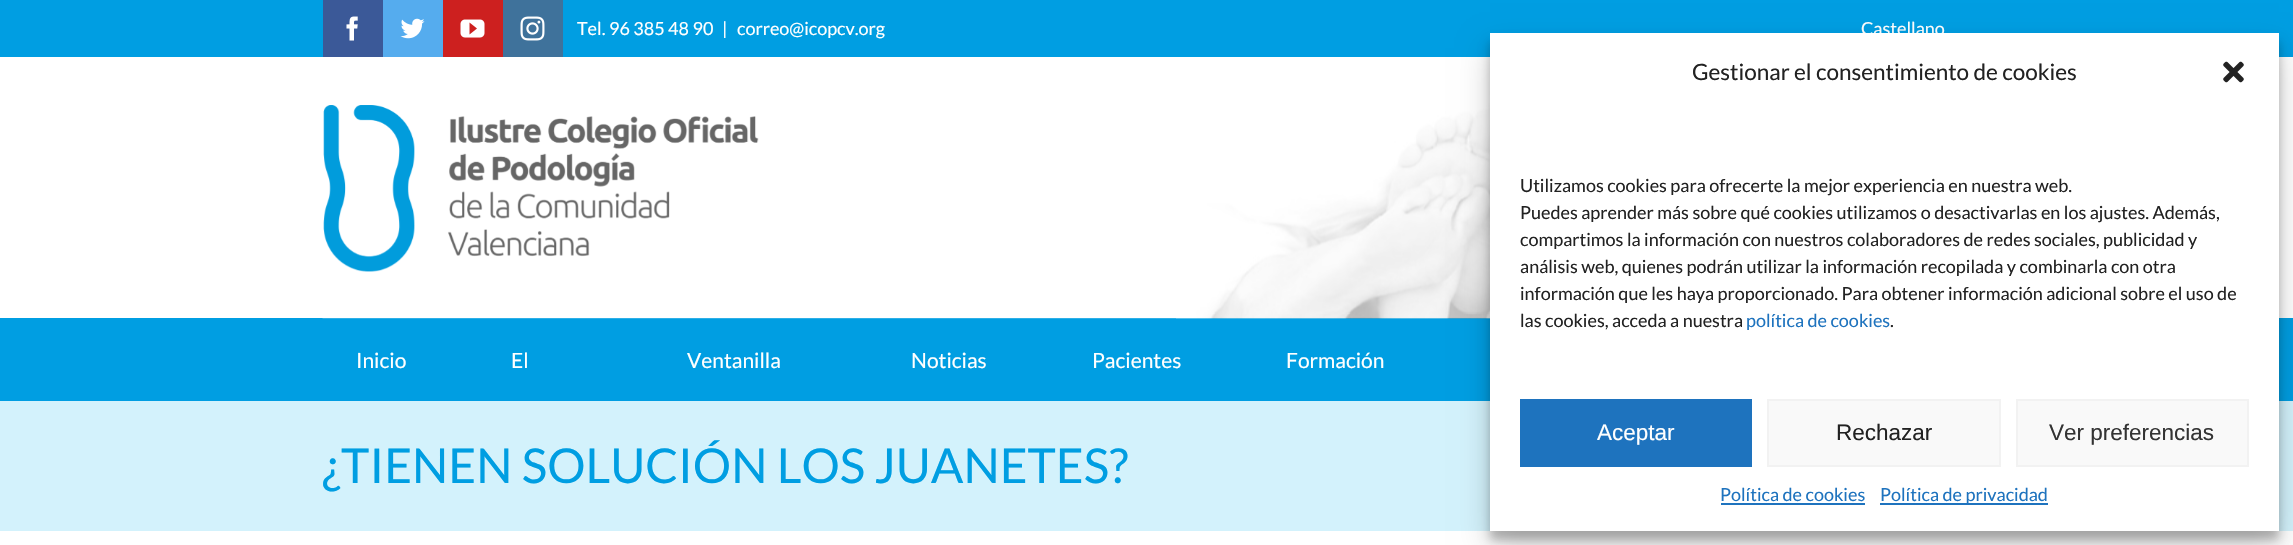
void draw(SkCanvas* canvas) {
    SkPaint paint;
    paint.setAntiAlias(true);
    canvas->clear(0xFFFFFFFF);
    paint.setColor(0xFF009EE2);
    canvas->drawRect(SkRect::MakeXYWH(0, 0, 2293, 57), paint);
    paint.setColor(0xFF3B5998);
    canvas->drawRect(SkRect::MakeXYWH(323, 0, 60, 57), paint);
    canvas->drawImageRect(SkImages::DeferredFromEncodedData(SkData::MakeFromFileName("img1.png")), SkRect::MakeXYWH(346, 16, 12, 25), SkSamplingOptions());
    paint.setColor(0xFF55ACEE);
    canvas->drawRect(SkRect::MakeXYWH(383, 0, 60, 57), paint);
    canvas->drawImageRect(SkImages::DeferredFromEncodedData(SkData::MakeFromFileName("img2.png")), SkRect::MakeXYWH(400, 18, 25, 21), SkSamplingOptions());
    paint.setColor(0xFFCD201F);
    canvas->drawRect(SkRect::MakeXYWH(443, 0, 60, 57), paint);
    canvas->drawImageRect(SkImages::DeferredFromEncodedData(SkData::MakeFromFileName("img3.png")), SkRect::MakeXYWH(460, 19, 25, 19), SkSamplingOptions());
    paint.setColor(0xFF3F729B);
    canvas->drawRect(SkRect::MakeXYWH(503, 0, 60, 57), paint);
    canvas->drawImageRect(SkImages::DeferredFromEncodedData(SkData::MakeFromFileName("img4.png")), SkRect::MakeXYWH(520, 16, 25, 25), SkSamplingOptions());
    SkFont font1(fontMgr->matchFamilyStyle("Lato", SkFontStyle::Normal()), 18);
    font1.setSubpixel(true);
    paint.setColor(0xFFFFFFFF);
    canvas->drawString("Tel. 96 385 48 90", 577, 35, font1, paint);
    canvas->drawString("|", 722, 35, font1, paint);
    canvas->drawString("correo@icopcv.org", 737, 35, font1, paint);
    canvas->drawString("Castellano", 1861, 35, font1, paint);
    paint.setColor(0xFF009EE2);
    canvas->drawRect(SkRect::MakeXYWH(0, 318, 2293, 83), paint);
    canvas->drawImageRect(SkImages::DeferredFromEncodedData(SkData::MakeFromFileName("img5.png")), SkRect::MakeXYWH(322, 72, 1168, 247), SkSamplingOptions());
    canvas->drawImageRect(SkImages::DeferredFromEncodedData(SkData::MakeFromFileName("img6.png")), SkRect::MakeXYWH(323, 105, 436, 167), SkSamplingOptions());
    SkFont font2(fontMgr->matchFamilyStyle("Lato", SkFontStyle::Normal()), 21);
    font2.setSubpixel(true);
    paint.setColor(0xFFFFFFFF);
    canvas->drawString("Inicio", 356, 368, font2, paint);
    canvas->drawString("El", 511, 368, font2, paint);
    canvas->drawString("Ventanilla", 687, 368, font2, paint);
    canvas->drawString("Noticias", 911, 368, font2, paint);
    canvas->drawString("Pacientes", 1092, 368, font2, paint);
    canvas->drawString("Formación", 1286, 368, font2, paint);
    paint.setColor(0xFFD3F2FC);
    canvas->drawRect(SkRect::MakeXYWH(0, 401, 2293, 130), paint);
    canvas->save();
    canvas->clipRect(SkRect::MakeXYWH(323, 401, 1650, 130));
    SkFont font3(fontMgr->matchFamilyStyle("Lato", SkFontStyle::Normal()), 48);
    font3.setSubpixel(true);
    paint.setColor(0xFF009EE2);
    canvas->drawString("¿TIENEN SOLUCIÓN LOS JUANETES?", 322, 483, font3, paint);
    canvas->restore();
    paint.setColor(0x3B000000);
    paint.setMaskFilter(SkMaskFilter::MakeBlur(kNormal_SkBlurStyle, 4.5f));
    canvas->drawRect(SkRect::MakeXYWH(1490, 42, 789, 498), paint);
    paint.setMaskFilter(nullptr);
    paint.setColor(0x30000000);
    paint.setMaskFilter(SkMaskFilter::MakeBlur(kNormal_SkBlurStyle, 15));
    canvas->drawRect(SkRect::MakeXYWH(1490, 48, 789, 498), paint);
    paint.setMaskFilter(nullptr);
    paint.setColor(0xFFFFFFFF);
    canvas->drawRect(SkRect::MakeXYWH(1490, 33, 789, 498), paint);
    SkFont font4(fontMgr->matchFamilyStyle("Lato", SkFontStyle::Normal()), 22.5f);
    font4.setSubpixel(true);
    paint.setColor(0xFF222222);
    canvas->drawString("Gestionar el consentimiento de cookies", 1692, 80, font4, paint);
    canvas->drawImageRect(SkImages::DeferredFromEncodedData(SkData::MakeFromFileName("img7.png")), SkRect::MakeXYWH(2223, 61, 21, 22), SkSamplingOptions());
    canvas->drawString("Utilizamos cookies para ofrecerte la mejor experiencia en nuestra web.", 1520, 192, font1, paint);
    canvas->drawString("Puedes aprender más sobre qué cookies utilizamos o desactivarlas en los ajustes. Además,", 1520, 219, font1, paint);
    canvas->drawString("compartimos la información con nuestros colaboradores de redes sociales, publicidad y", 1520, 246, font1, paint);
    canvas->drawString("análisis web, quienes podrán utilizar la información recopilada y combinarla con otra", 1520, 273, font1, paint);
    canvas->drawString("información que les haya proporcionado. Para obtener información adicional sobre el uso de", 1520, 300, font1, paint);
    canvas->drawString("las cookies, acceda a nuestra", 1520, 327, font1, paint);
    paint.setColor(0xFF1E73BE);
    canvas->drawString("política de cookies", 1746, 327, font1, paint);
    paint.setColor(0xFF222222);
    canvas->drawString(".", 1890, 327, font1, paint);
    paint.setColor(0xFF1E73BE);
    canvas->drawRect(SkRect::MakeXYWH(1520, 399, 232, 68), paint);
    SkFont font5(fontMgr->matchFamilyStyle("Liberation Sans", SkFontStyle::Normal()), 22.5f);
    font5.setSubpixel(true);
    paint.setColor(0xFFFFFFFF);
    canvas->drawString("Aceptar", 1597, 440, font5, paint);
    paint.setColor(0xFFF9F9F9);
    canvas->drawRect(SkRect::MakeXYWH(1768, 400, 232, 66), paint);
    paint.setStyle(SkPaint::kStroke_Style);
    paint.setStrokeWidth(2);
    paint.setColor(0xFFF2F2F2);
    canvas->drawRect(SkRect::MakeXYWH(1768, 400, 232, 66), paint);
    paint.setStyle(SkPaint::kFill_Style);
    paint.setColor(0xFF222222);
    canvas->drawString("Rechazar", 1836, 440, font5, paint);
    paint.setColor(0xFFF9F9F9);
    canvas->drawRect(SkRect::MakeXYWH(2017, 400, 231, 66), paint);
    paint.setStyle(SkPaint::kStroke_Style);
    paint.setColor(0xFFF2F2F2);
    canvas->drawRect(SkRect::MakeXYWH(2017, 400, 231, 66), paint);
    paint.setStyle(SkPaint::kFill_Style);
    paint.setColor(0xFF333333);
    canvas->drawString("Ver preferencias", 2049, 440, font5, paint);
    paint.setColor(0xFF1E73BE);
    canvas->drawString("Política de cookies", 1720, 501, font1, paint);
    canvas->drawRect(SkRect::MakeXYWH(1721, 503, 144, 2), paint);
    canvas->drawRect(SkRect::MakeXYWH(1880, 503, 168, 2), paint);
    canvas->drawString("Política de privacidad", 1880, 501, font1, paint);
}
